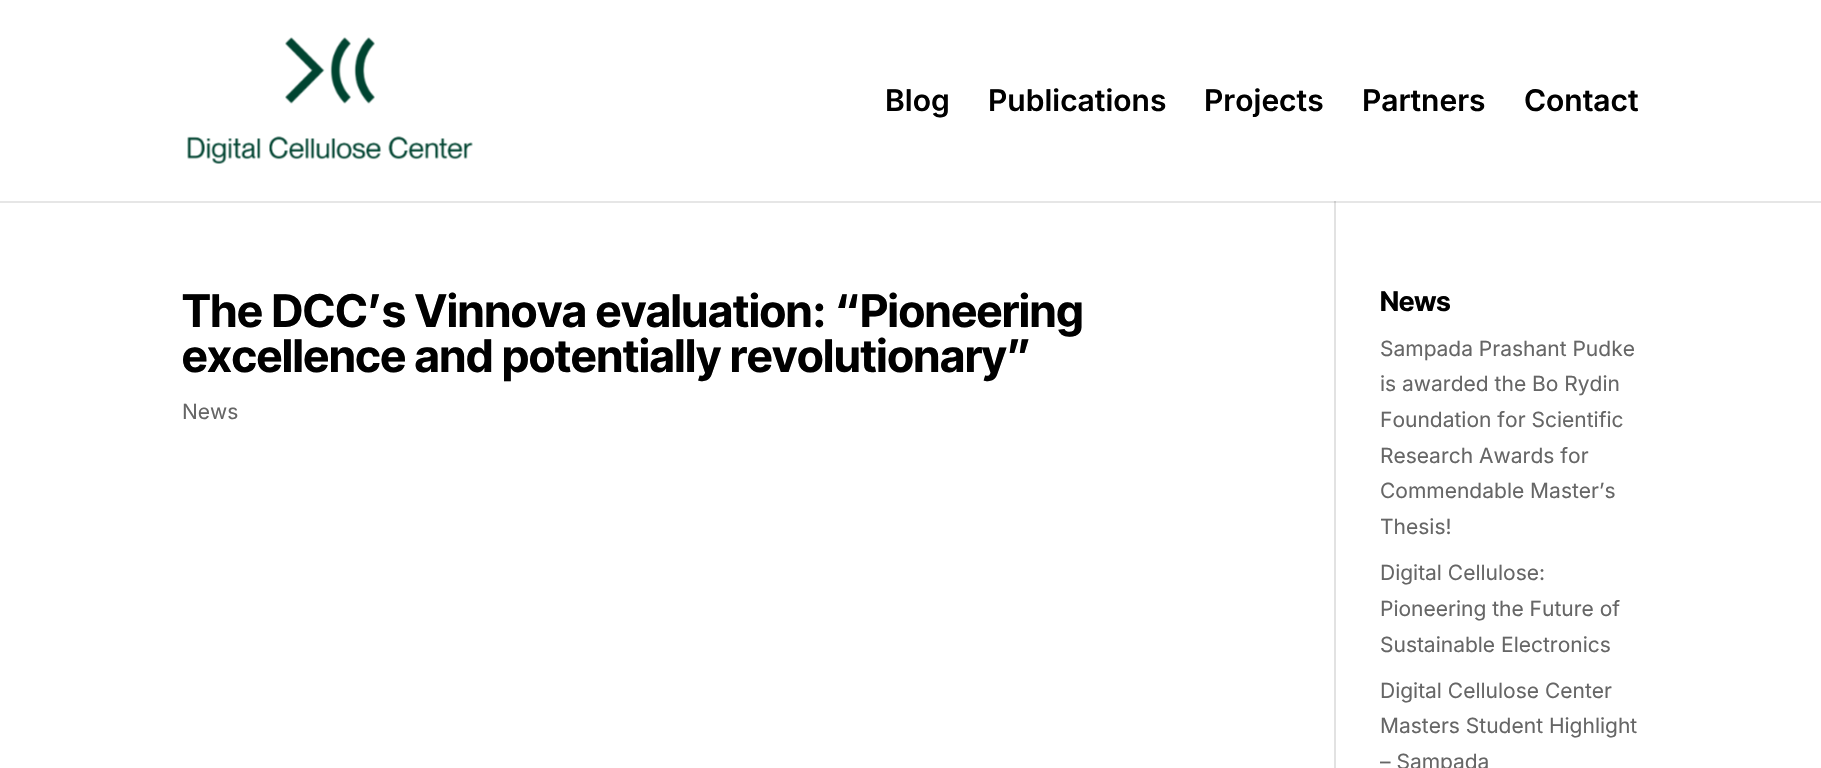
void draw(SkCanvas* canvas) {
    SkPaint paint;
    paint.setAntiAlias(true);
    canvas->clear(0xFFFFFFFF);
    paint.setColor(0xFFE6E6E6);
    canvas->drawRect(SkRect::MakeXYWH(0, 201, 1821, 2), paint);
    canvas->drawImageRect(SkImages::DeferredFromEncodedData(SkData::MakeFromFileName("img1.png")), SkRect::MakeXYWH(187, 37, 286, 127), SkSamplingOptions());
    SkFont font1(fontMgr->matchFamilyStyle("Inter", SkFontStyle(600, SkFontStyle::kNormal_Width, SkFontStyle::kUpright_Slant)), 30);
    font1.setSubpixel(true);
    paint.setColor(0xFF000000);
    canvas->drawString("Blog", 885, 111, font1, paint);
    canvas->drawString("Publications", 988, 111, font1, paint);
    canvas->drawString("Projects", 1204, 111, font1, paint);
    canvas->drawString("Partners", 1362, 111, font1, paint);
    canvas->drawString("Contact", 1524, 111, font1, paint);
    paint.setColor(0xFFE2E2E2);
    canvas->drawRect(SkRect::MakeXYWH(1334, 201, 2, 567), paint);
    paint.setColor(0xFFCBCBCB);
    canvas->drawRect(SkRect::MakeXYWH(1334, 201, 2, 2), paint);
    SkFont font2(fontMgr->matchFamilyStyle("Inter Tight", SkFontStyle::Bold()), 45);
    font2.setSubpixel(true);
    paint.setColor(0xFF000000);
    canvas->drawString("The DCC’s Vinnova evaluation: “Pioneering", 182, 327, font2, paint);
    canvas->drawString("excellence and potentially revolutionary”", 182, 372, font2, paint);
    SkFont font3(fontMgr->matchFamilyStyle("Inter", SkFontStyle::Normal()), 21);
    font3.setSubpixel(true);
    paint.setColor(0xFF666666);
    canvas->drawString("News", 182, 419, font3, paint);
    SkFont font4(fontMgr->matchFamilyStyle("Inter Tight", SkFontStyle::Bold()), 27);
    font4.setSubpixel(true);
    paint.setColor(0xFF000000);
    canvas->drawString("News", 1380, 311, font4, paint);
    paint.setColor(0xFF666666);
    canvas->drawString("Sampada Prashant Pudke", 1380, 356, font3, paint);
    canvas->drawString("is awarded the Bo Rydin", 1380, 391, font3, paint);
    canvas->drawString("Foundation for Scientific", 1380, 427, font3, paint);
    canvas->drawString("Research Awards for", 1380, 463, font3, paint);
    canvas->drawString("Commendable Master’s", 1380, 498, font3, paint);
    canvas->drawString("Thesis!", 1380, 534, font3, paint);
    canvas->drawString("Digital Cellulose:", 1380, 580, font3, paint);
    canvas->drawString("Pioneering the Future of", 1380, 616, font3, paint);
    canvas->drawString("Sustainable Electronics", 1380, 652, font3, paint);
    canvas->drawString("Digital Cellulose Center", 1380, 698, font3, paint);
    canvas->drawString("Masters Student Highlight", 1380, 733, font3, paint);
    canvas->drawString("– Sampada", 1380, 769, font3, paint);
}
